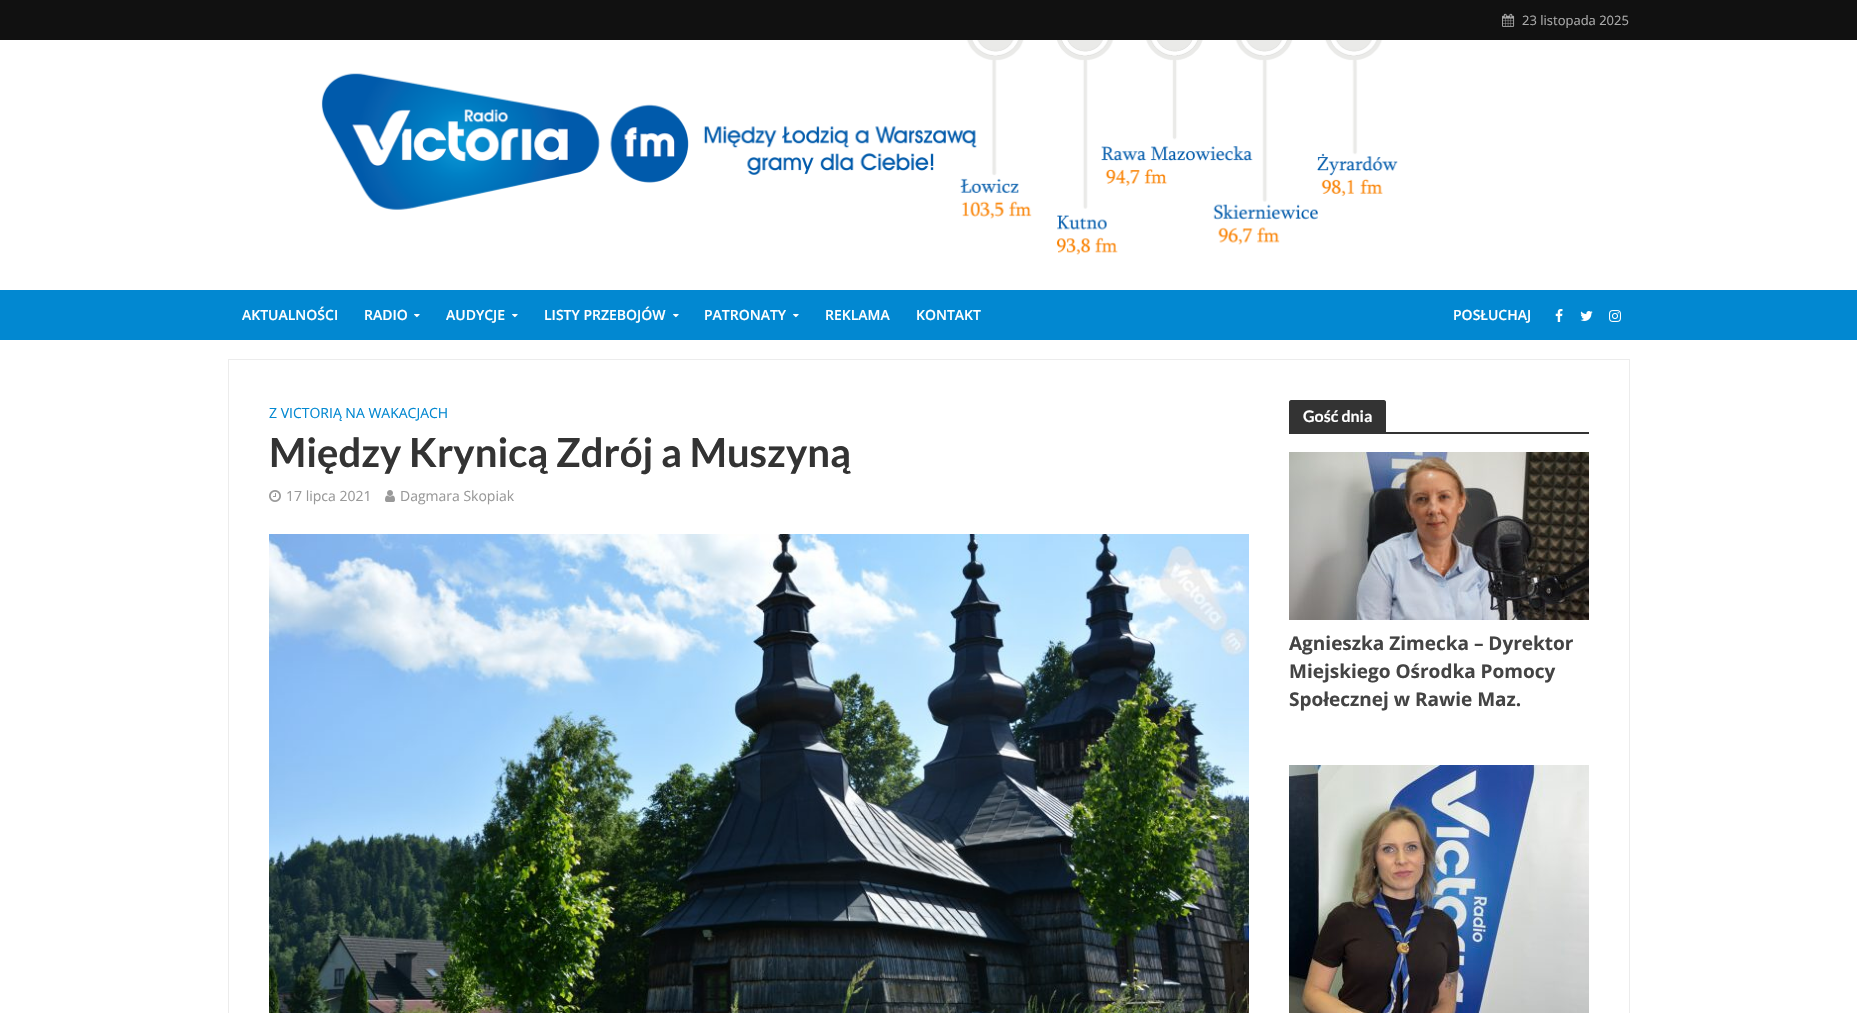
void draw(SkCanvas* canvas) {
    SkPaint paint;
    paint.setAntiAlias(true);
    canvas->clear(0xFFFFFFFF);
    paint.setColor(0xFF111111);
    canvas->drawRect(SkRect::MakeXYWH(0, 0, 1857, 40), paint);
    canvas->drawImageRect(SkImages::DeferredFromEncodedData(SkData::MakeFromFileName("img1.png")), SkRect::MakeXYWH(1502, 13, 13, 14), SkSamplingOptions());
    SkFont font1(fontMgr->matchFamilyStyle("Open Sans", SkFontStyle::Normal()), 13);
    font1.setSubpixel(true);
    paint.setColor(0xFFAAAAAA);
    canvas->drawString("23 listopada 2025", 1522, 25, font1, paint);
    canvas->drawImageRect(SkImages::DeferredFromEncodedData(SkData::MakeFromFileName("img2.png")), SkRect::MakeXYWH(321, 40, 1077, 215), SkSamplingOptions());
    paint.setColor(0xFF0288D1);
    canvas->drawRect(SkRect::MakeXYWH(0, 290, 1857, 50), paint);
    SkFont font2(fontMgr->matchFamilyStyle("Open Sans", SkFontStyle(600, SkFontStyle::kNormal_Width, SkFontStyle::kUpright_Slant)), 14);
    font2.setSubpixel(true);
    paint.setColor(0xFFFFFFFF);
    canvas->drawString("AKTUALNOŚCI", 242, 320, font2, paint);
    canvas->drawString("RADIO", 364, 320, font2, paint);
    canvas->drawImageRect(SkImages::DeferredFromEncodedData(SkData::MakeFromFileName("img3.png")), SkRect::MakeXYWH(414, 314, 6, 4), SkSamplingOptions());
    canvas->drawString("AUDYCJE", 446, 320, font2, paint);
    canvas->drawImageRect(SkImages::DeferredFromEncodedData(SkData::MakeFromFileName("img3.png")), SkRect::MakeXYWH(512, 314, 6, 4), SkSamplingOptions());
    canvas->drawString("LISTY PRZEBOJÓW", 544, 320, font2, paint);
    canvas->drawImageRect(SkImages::DeferredFromEncodedData(SkData::MakeFromFileName("img3.png")), SkRect::MakeXYWH(673, 314, 6, 4), SkSamplingOptions());
    canvas->drawString("PATRONATY", 704, 320, font2, paint);
    canvas->drawImageRect(SkImages::DeferredFromEncodedData(SkData::MakeFromFileName("img3.png")), SkRect::MakeXYWH(793, 314, 6, 4), SkSamplingOptions());
    canvas->drawString("REKLAMA", 825, 320, font2, paint);
    canvas->drawString("KONTAKT", 916, 320, font2, paint);
    canvas->drawString("POSŁUCHAJ", 1453, 320, font2, paint);
    canvas->drawImageRect(SkImages::DeferredFromEncodedData(SkData::MakeFromFileName("img4.png")), SkRect::MakeXYWH(1555, 309, 8, 13), SkSamplingOptions());
    canvas->drawImageRect(SkImages::DeferredFromEncodedData(SkData::MakeFromFileName("img5.png")), SkRect::MakeXYWH(1580, 311, 13, 10), SkSamplingOptions());
    canvas->drawImageRect(SkImages::DeferredFromEncodedData(SkData::MakeFromFileName("img6.png")), SkRect::MakeXYWH(1609, 310, 12, 12), SkSamplingOptions());
    paint.setStyle(SkPaint::kStroke_Style);
    paint.setStrokeWidth(1);
    paint.setColor(0xFFECECEC);
    canvas->drawRect(SkRect::MakeXYWH(228.5f, 359.5f, 1401, 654), paint);
    SkFont font3(fontMgr->matchFamilyStyle("Open Sans", SkFontStyle::Normal()), 14);
    font3.setSubpixel(true);
    paint.setStyle(SkPaint::kFill_Style);
    paint.setColor(0xFF0288D1);
    canvas->drawString("Z VICTORIĄ NA WAKACJACH", 269, 418, font3, paint);
    SkFont font4(fontMgr->matchFamilyStyle("Lato", SkFontStyle::Bold()), 40);
    font4.setSubpixel(true);
    paint.setColor(0xFF333333);
    canvas->drawString("Między Krynicą Zdrój a Muszyną", 269, 467, font4, paint);
    canvas->drawImageRect(SkImages::DeferredFromEncodedData(SkData::MakeFromFileName("img7.png")), SkRect::MakeXYWH(269, 490, 12, 12), SkSamplingOptions());
    paint.setColor(0xFF999999);
    canvas->drawString("17 lipca 2021", 286, 501, font3, paint);
    canvas->drawImageRect(SkImages::DeferredFromEncodedData(SkData::MakeFromFileName("img8.png")), SkRect::MakeXYWH(385, 490, 10, 12), SkSamplingOptions());
    canvas->drawString("Dagmara Skopiak", 400, 501, font3, paint);
    canvas->drawImageRect(SkImages::DeferredFromEncodedData(SkData::MakeFromFileName("img9.png")), SkRect::MakeXYWH(269, 534, 980, 479), SkSamplingOptions());
    paint.setColor(0xFF333333);
    canvas->drawPath(SkPathBuilder().moveTo(1291, 400).lineTo(1384, 400).cubicTo(1385, 400, 1386, 401, 1386, 402).lineTo(1386, 432).lineTo(1289, 432).lineTo(1289, 402).cubicTo(1289, 401, 1290, 400, 1291, 400).close().detach(), paint);
    SkFont font5(fontMgr->matchFamilyStyle("Lato", SkFontStyle::Bold()), 16);
    font5.setSubpixel(true);
    paint.setColor(0xFFFFFFFF);
    canvas->drawString("Gość dnia", 1303, 422, font5, paint);
    paint.setColor(0xFF333333);
    canvas->drawRect(SkRect::MakeXYWH(1289, 432, 300, 2), paint);
    canvas->drawImageRect(SkImages::DeferredFromEncodedData(SkData::MakeFromFileName("img10.png")), SkRect::MakeXYWH(1289, 452, 300, 168), SkSamplingOptions());
    SkFont font6(fontMgr->matchFamilyStyle("Open Sans", SkFontStyle::Bold()), 19);
    font6.setSubpixel(true);
    paint.setColor(0xFF444444);
    canvas->drawString("Agnieszka Zimecka – Dyrektor", 1289, 650, font6, paint);
    canvas->drawString("Miejskiego Ośrodka Pomocy", 1289, 678, font6, paint);
    canvas->drawString("Społecznej w Rawie Maz.", 1289, 706, font6, paint);
    canvas->drawImageRect(SkImages::DeferredFromEncodedData(SkData::MakeFromFileName("img11.png")), SkRect::MakeXYWH(1289, 765, 300, 248), SkSamplingOptions());
}
